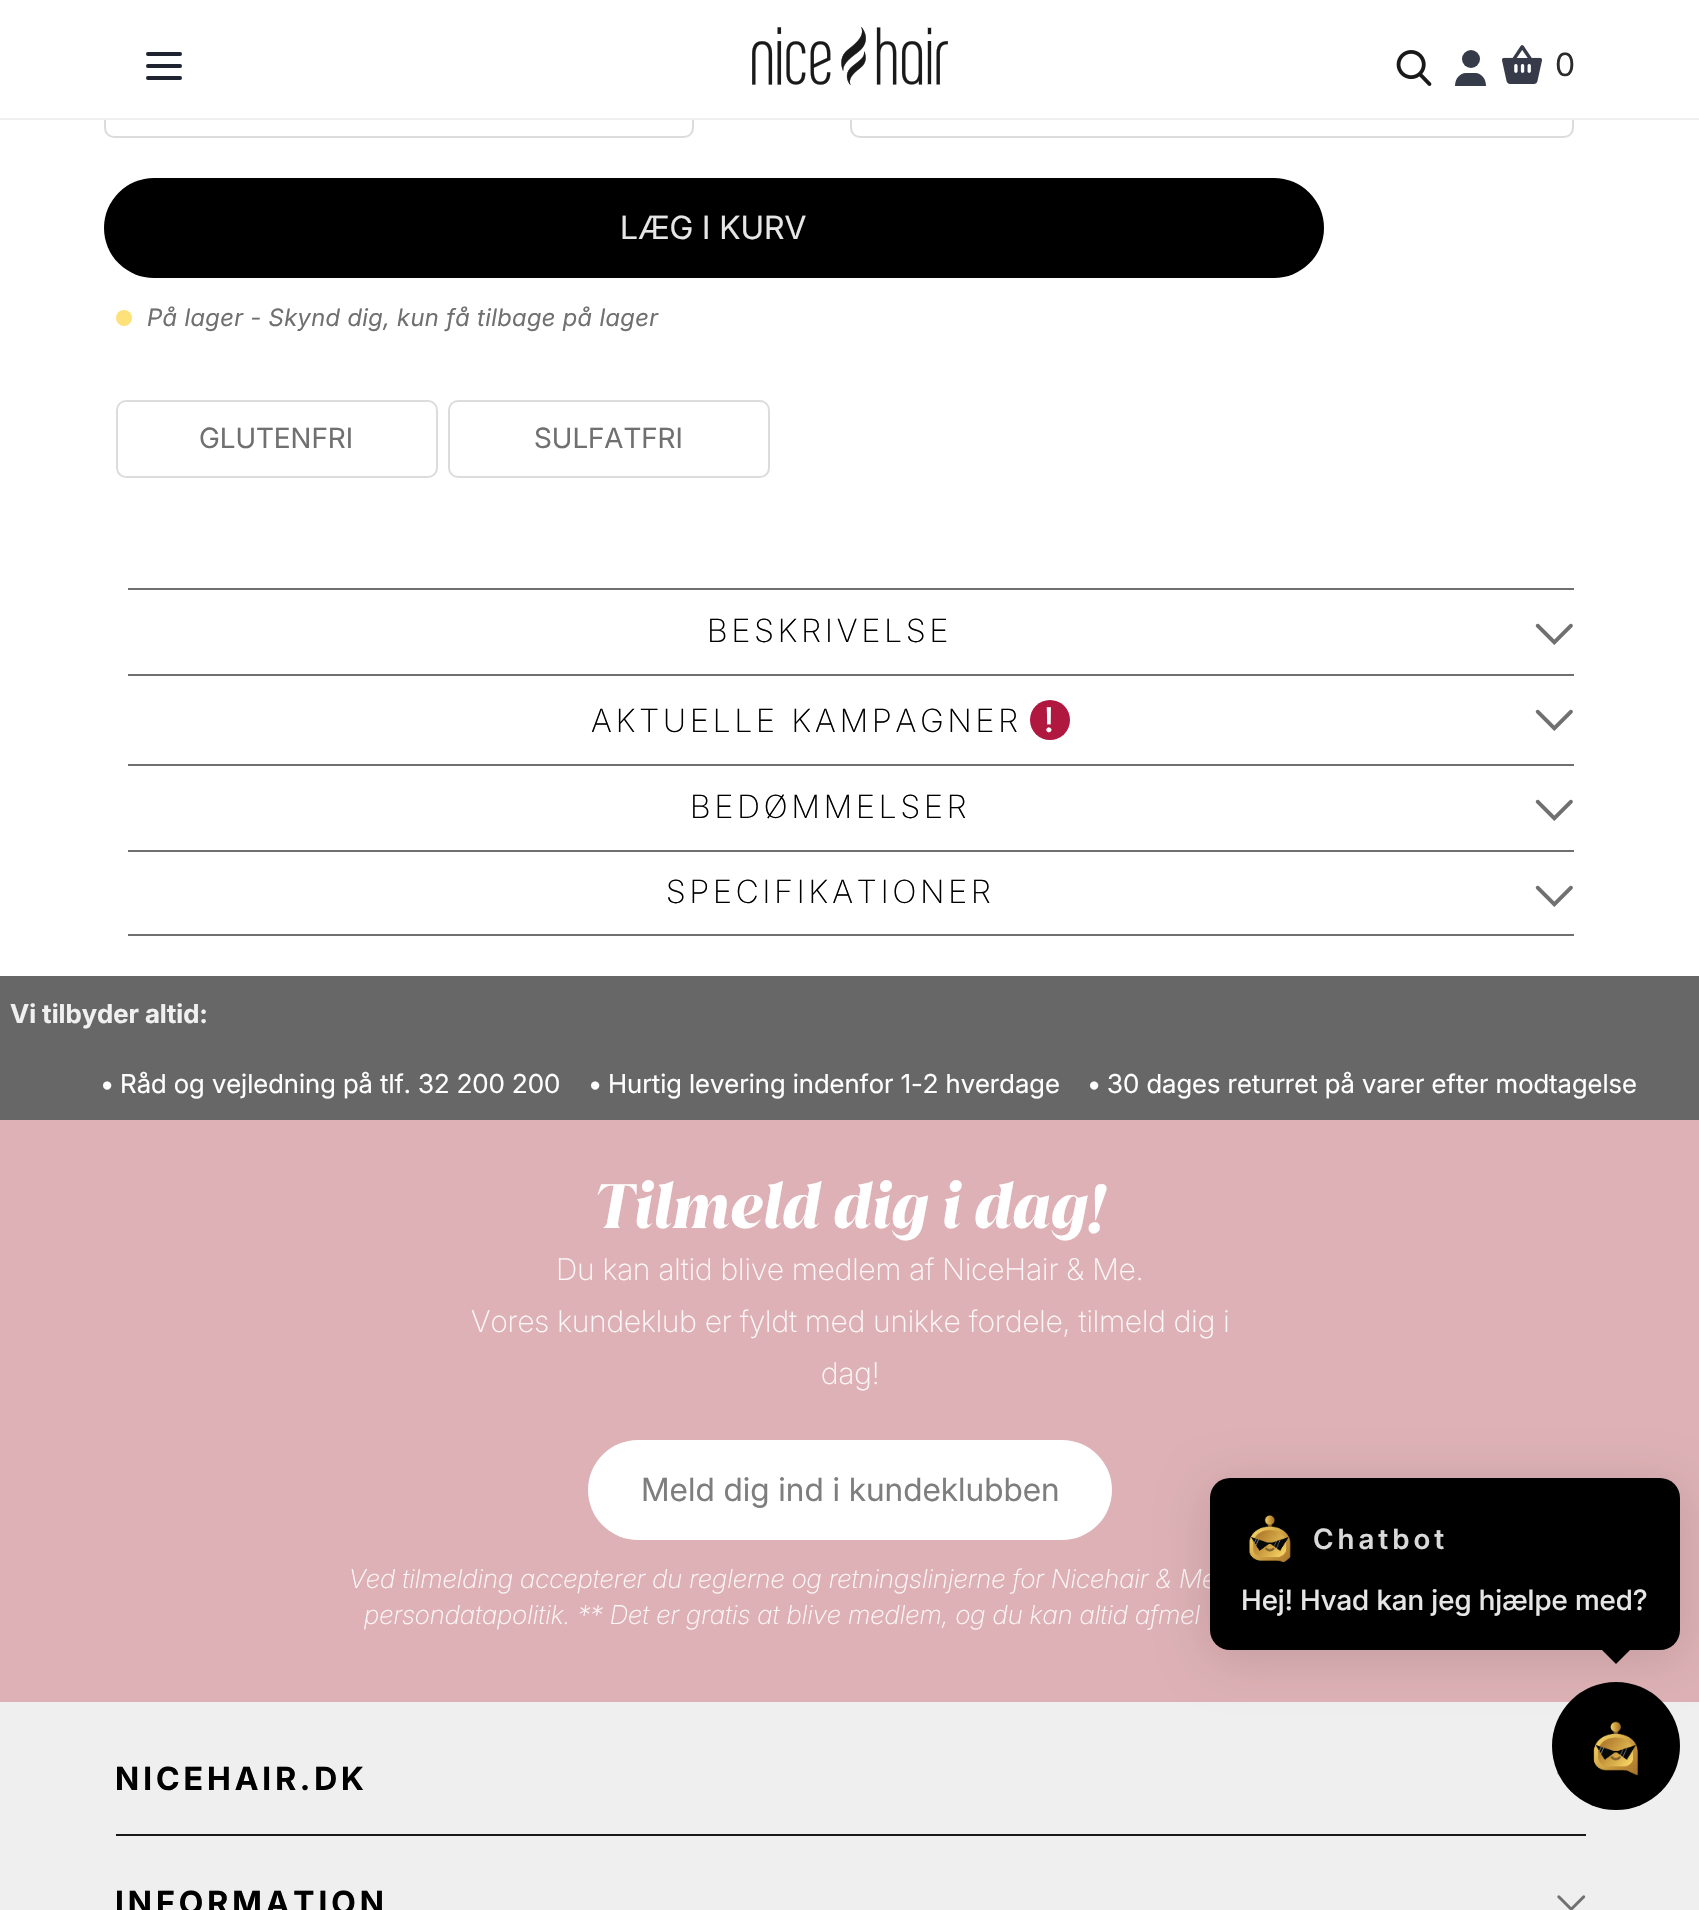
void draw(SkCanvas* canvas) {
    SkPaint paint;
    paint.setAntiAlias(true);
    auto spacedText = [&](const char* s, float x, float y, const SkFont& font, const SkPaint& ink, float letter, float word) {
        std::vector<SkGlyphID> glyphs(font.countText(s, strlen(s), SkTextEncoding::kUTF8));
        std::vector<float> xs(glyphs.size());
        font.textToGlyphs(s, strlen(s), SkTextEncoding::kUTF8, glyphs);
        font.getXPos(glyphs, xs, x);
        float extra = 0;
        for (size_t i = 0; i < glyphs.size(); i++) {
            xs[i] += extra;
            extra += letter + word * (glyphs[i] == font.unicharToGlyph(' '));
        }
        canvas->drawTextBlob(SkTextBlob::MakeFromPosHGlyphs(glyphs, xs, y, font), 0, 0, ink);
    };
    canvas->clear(0xFFFFFFFF);
    paint.setStyle(SkPaint::kStroke_Style);
    paint.setStrokeWidth(2);
    paint.setColor(0xFFDCDCDC);
    canvas->drawRoundRect(SkRect::MakeXYWH(105, 35, 588, 102), 9, 9, paint);
    canvas->drawRoundRect(SkRect::MakeXYWH(851, 35, 722, 102), 9, 9, paint);
    paint.setStyle(SkPaint::kFill_Style);
    paint.setColor(0xFFFFFFFF);
    canvas->drawRect(SkRect::MakeXYWH(104, 34, 1470, 84), paint);
    paint.setColor(0xFFEFEFEF);
    canvas->drawRect(SkRect::MakeXYWH(0, 118, 1699, 2), paint);
    paint.setColor(0xFF1F232F);
    canvas->drawRoundRect(SkRect::MakeXYWH(146, 52, 36, 4), 2, 2, paint);
    canvas->drawRoundRect(SkRect::MakeXYWH(146, 64, 36, 4), 2, 2, paint);
    canvas->drawRoundRect(SkRect::MakeXYWH(146, 76, 36, 4), 2, 2, paint);
    canvas->drawImageRect(SkImages::DeferredFromEncodedData(SkData::MakeFromFileName("img1.png")), SkRect::MakeXYWH(752, 27, 196, 58), SkSamplingOptions());
    canvas->drawImageRect(SkImages::DeferredFromEncodedData(SkData::MakeFromFileName("img2.png")), SkRect::MakeXYWH(1396, 50, 36, 36), SkSamplingOptions());
    paint.setColor(0xFF363B49);
    canvas->drawCircle(1471, 59, 9, paint);
    canvas->drawPath(SkPathBuilder().moveTo(1455, 86).cubicTo(1455, 78.5f, 1460, 73, 1466, 73).lineTo(1475.5f, 73).cubicTo(1481, 73, 1486, 78.5f, 1486, 86).detach(), paint);
    canvas->drawImageRect(SkImages::DeferredFromEncodedData(SkData::MakeFromFileName("img3.png")), SkRect::MakeXYWH(1502, 45, 40, 39), SkSamplingOptions());
    SkFont font1(fontMgr->matchFamilyStyle("Inter", SkFontStyle::Normal()), 32);
    font1.setSubpixel(true);
    paint.setColor(0xFF2C2C2C);
    canvas->drawString("0", 1555, 76, font1, paint);
    paint.setColor(0xFF000000);
    canvas->drawRoundRect(SkRect::MakeXYWH(104, 178, 1220, 100), 50, 50, paint);
    paint.setColor(0xFFE6E6E6);
    canvas->drawString("LÆG I KURV", 620, 239, font1, paint);
    paint.setColor(0xFFFFE17A);
    canvas->drawCircle(124, 318, 8, paint);
    SkFont font2(fontMgr->matchFamilyStyle("Inter", SkFontStyle::Italic()), 24);
    font2.setSubpixel(true);
    paint.setColor(0xFF707070);
    spacedText("På lager - Skynd dig, kun få tilbage på lager", 147, 326, font2, paint, 0.4f, 0);
    paint.setStyle(SkPaint::kStroke_Style);
    paint.setColor(0xFFDCDCDC);
    canvas->drawRoundRect(SkRect::MakeXYWH(117, 401, 320, 76), 9, 9, paint);
    SkFont font3(fontMgr->matchFamilyStyle("Inter", SkFontStyle::Normal()), 28);
    font3.setSubpixel(true);
    paint.setStyle(SkPaint::kFill_Style);
    paint.setColor(0xFF707070);
    canvas->drawString("GLUTENFRI", 199, 448, font3, paint);
    paint.setStyle(SkPaint::kStroke_Style);
    paint.setColor(0xFFDCDCDC);
    canvas->drawRoundRect(SkRect::MakeXYWH(449, 401, 320, 76), 9, 9, paint);
    paint.setStyle(SkPaint::kFill_Style);
    paint.setColor(0xFF707070);
    canvas->drawString("SULFATFRI", 534, 448, font3, paint);
    canvas->drawRect(SkRect::MakeXYWH(128, 588, 1446, 2), paint);
    SkFont font4(fontMgr->matchFamilyStyle("Inter", SkFontStyle(200, SkFontStyle::kNormal_Width, SkFontStyle::kUpright_Slant)), 32);
    font4.setSubpixel(true);
    paint.setColor(0xFF000000);
    spacedText("BESKRIVELSE", 707, 642, font4, paint, 4, 0);
    canvas->drawImageRect(SkImages::DeferredFromEncodedData(SkData::MakeFromFileName("img4.png")), SkRect::MakeXYWH(1535, 623, 38, 22), SkSamplingOptions());
    paint.setColor(0xFF707070);
    canvas->drawRect(SkRect::MakeXYWH(128, 674, 1446, 2), paint);
    paint.setColor(0xFF000000);
    spacedText("AKTUELLE KAMPAGNER", 591, 732, font4, paint, 4, 0);
    paint.setColor(0xFFB0183F);
    canvas->drawCircle(1050, 720, 20, paint);
    SkFont font5(fontMgr->matchFamilyStyle("Inter", SkFontStyle(500, SkFontStyle::kNormal_Width, SkFontStyle::kUpright_Slant)), 34);
    font5.setSubpixel(true);
    paint.setColor(0xFFFFFFFF);
    canvas->drawString("!", 1044, 732, font5, paint);
    canvas->drawImageRect(SkImages::DeferredFromEncodedData(SkData::MakeFromFileName("img4.png")), SkRect::MakeXYWH(1535, 709, 38, 22), SkSamplingOptions());
    paint.setColor(0xFF707070);
    canvas->drawRect(SkRect::MakeXYWH(128, 764, 1446, 2), paint);
    paint.setColor(0xFF000000);
    spacedText("BEDØMMELSER", 690, 818, font4, paint, 4, 0);
    canvas->drawImageRect(SkImages::DeferredFromEncodedData(SkData::MakeFromFileName("img4.png")), SkRect::MakeXYWH(1535, 799, 38, 22), SkSamplingOptions());
    paint.setColor(0xFF707070);
    canvas->drawRect(SkRect::MakeXYWH(128, 850, 1446, 2), paint);
    canvas->drawRect(SkRect::MakeXYWH(128, 934, 1446, 2), paint);
    paint.setColor(0xFF000000);
    spacedText("SPECIFIKATIONER", 666, 903, font4, paint, 4, 0);
    canvas->drawImageRect(SkImages::DeferredFromEncodedData(SkData::MakeFromFileName("img4.png")), SkRect::MakeXYWH(1535, 885, 38, 22), SkSamplingOptions());
    paint.setColor(0xFF666766);
    canvas->drawRect(SkRect::MakeXYWH(0, 976, 1699, 144), paint);
    SkFont font6(fontMgr->matchFamilyStyle("Inter", SkFontStyle::Bold()), 26);
    font6.setSubpixel(true);
    paint.setColor(0xFFF0F0F0);
    canvas->drawString("Vi tilbyder altid:", 10, 1023, font6, paint);
    SkFont font7(fontMgr->matchFamilyStyle("Inter", SkFontStyle::Normal()), 26);
    font7.setSubpixel(true);
    paint.setColor(0xFFFFFFFF);
    canvas->drawString("•", 100, 1093, font7, paint);
    canvas->drawString("Råd og vejledning på tlf. 32 200 200", 120, 1093, font7, paint);
    canvas->drawString("•", 588, 1093, font7, paint);
    canvas->drawString("Hurtig levering indenfor 1-2 hverdage", 608, 1093, font7, paint);
    canvas->drawString("•", 1087, 1093, font7, paint);
    canvas->drawString("30 dages returret på varer efter modtagelse", 1107, 1093, font7, paint);
    paint.setColor(0xFFDDB1B5);
    canvas->drawRect(SkRect::MakeXYWH(0, 1120, 1699, 582), paint);
    SkFont font8(fontMgr->matchFamilyStyle("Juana", SkFontStyle::Bold()), 60);
    font8.setSubpixel(true);
    paint.setColor(0xFFFFFFFF);
    canvas->drawString("Tilmeld dig i dag!", 594, 1228, font8, paint);
    SkFont font9(fontMgr->matchFamilyStyle("Inter", SkFontStyle(200, SkFontStyle::kNormal_Width, SkFontStyle::kUpright_Slant)), 30);
    font9.setSubpixel(true);
    paint.setColor(0xFFFCF7F8);
    canvas->drawString("Du kan altid blive medlem af NiceHair & Me.", 556, 1280, font9, paint);
    canvas->drawString("Vores kundeklub er fyldt med unikke fordele, tilmeld dig i", 471, 1332, font9, paint);
    canvas->drawString("dag!", 821, 1384, font9, paint);
    paint.setColor(0xFFFFFFFF);
    canvas->drawRoundRect(SkRect::MakeXYWH(588, 1440, 524, 100), 50, 50, paint);
    paint.setColor(0xFF7E7E7E);
    canvas->drawString("Meld dig ind i kundeklubben", 641, 1501, font1, paint);
    SkFont font10(fontMgr->matchFamilyStyle("Inter", SkFontStyle(200, SkFontStyle::kNormal_Width, SkFontStyle::kItalic_Slant)), 26);
    font10.setSubpixel(true);
    paint.setColor(0xFFFCF7F8);
    canvas->drawString("Ved tilmelding accepterer du reglerne og retningslinjerne for Nicehair & Me", 349, 1588, font10, paint);
    canvas->drawString("persondatapolitik. ** Det er gratis at blive medlem, og du kan altid afmel", 364, 1624, font10, paint);
    paint.setColor(0xFFEFEFEF);
    canvas->drawRect(SkRect::MakeXYWH(0, 1702, 1699, 208), paint);
    SkFont font11(fontMgr->matchFamilyStyle("Inter", SkFontStyle::Bold()), 32);
    font11.setSubpixel(true);
    paint.setColor(0xFF000000);
    spacedText("NICEHAIR.DK", 115, 1790, font11, paint, 4, 0);
    canvas->drawImageRect(SkImages::DeferredFromEncodedData(SkData::MakeFromFileName("img5.png")), SkRect::MakeXYWH(1557, 1771, 3, 5), SkSamplingOptions());
    paint.setColor(0xFF181818);
    canvas->drawRect(SkRect::MakeXYWH(116, 1834, 1470, 2), paint);
    paint.setColor(0xFF000000);
    spacedText("INFORMATION", 115, 1914, font11, paint, 4, 0);
    canvas->drawImageRect(SkImages::DeferredFromEncodedData(SkData::MakeFromFileName("img6.png")), SkRect::MakeXYWH(1557, 1895, 29, 15), SkSamplingOptions());
    canvas->drawCircle(1616, 1746, 64, paint);
    canvas->drawImageRect(SkImages::DeferredFromEncodedData(SkData::MakeFromFileName("img8.png")), SkRect::MakeXYWH(1593, 1721, 45, 55), SkSamplingOptions());
    paint.setColor(0x1F000000);
    paint.setMaskFilter(SkMaskFilter::MakeBlur(kNormal_SkBlurStyle, 24));
    canvas->drawRoundRect(SkRect::MakeXYWH(1210, 1486, 470, 172), 20, 20, paint);
    paint.setMaskFilter(nullptr);
    paint.setColor(0xFF000000);
    canvas->drawRoundRect(SkRect::MakeXYWH(1210, 1478, 470, 172), 20, 20, paint);
    canvas->drawImageRect(SkImages::DeferredFromEncodedData(SkData::MakeFromFileName("img7.png")), SkRect::MakeXYWH(1249, 1515, 42, 48), SkSamplingOptions());
    SkFont font12(fontMgr->matchFamilyStyle("Inter", SkFontStyle(600, SkFontStyle::kNormal_Width, SkFontStyle::kUpright_Slant)), 28);
    font12.setSubpixel(true);
    paint.setColor(0xFFD9D9D9);
    spacedText("Chatbot", 1313, 1549, font12, paint, 4, 0);
    SkFont font13(fontMgr->matchFamilyStyle("Inter", SkFontStyle(500, SkFontStyle::kNormal_Width, SkFontStyle::kUpright_Slant)), 28);
    font13.setSubpixel(true);
    paint.setColor(0xFFE6E6E6);
    canvas->drawString("Hej! Hvad kan jeg hjælpe med?", 1241, 1610, font13, paint);
    paint.setColor(0xFF000000);
    canvas->drawPath(SkPathBuilder().moveTo(1616, 1636).lineTo(1630, 1650).lineTo(1616, 1664).lineTo(1602, 1650).close().detach(), paint);
}
